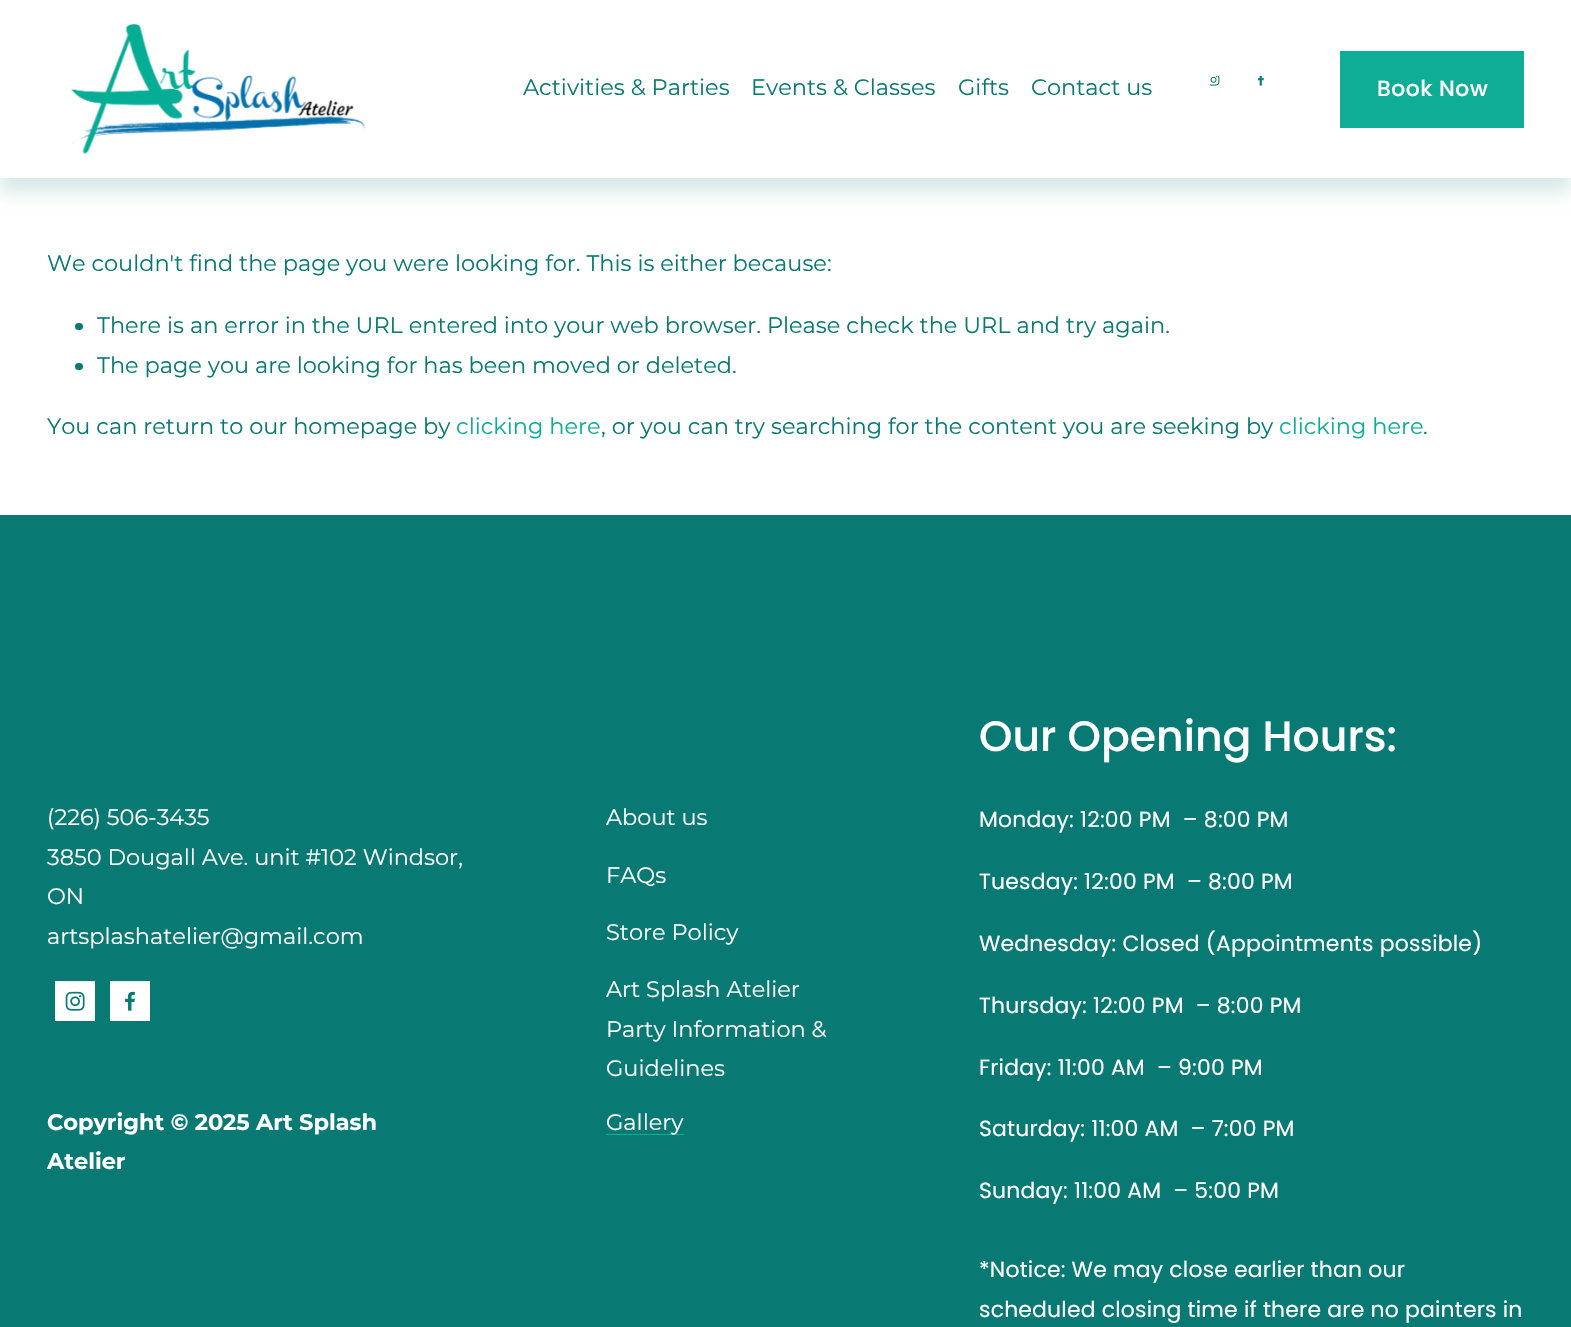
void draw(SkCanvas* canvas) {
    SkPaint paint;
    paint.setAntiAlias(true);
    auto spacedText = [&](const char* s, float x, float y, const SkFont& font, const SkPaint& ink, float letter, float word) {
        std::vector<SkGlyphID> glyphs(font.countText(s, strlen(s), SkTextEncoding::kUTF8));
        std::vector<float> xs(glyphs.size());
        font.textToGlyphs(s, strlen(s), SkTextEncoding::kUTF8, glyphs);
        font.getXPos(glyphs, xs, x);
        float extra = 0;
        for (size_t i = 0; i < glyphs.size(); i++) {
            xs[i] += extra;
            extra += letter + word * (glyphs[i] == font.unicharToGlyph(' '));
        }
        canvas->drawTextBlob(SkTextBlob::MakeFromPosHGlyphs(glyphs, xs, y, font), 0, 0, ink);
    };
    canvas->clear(0xFFFFFFFF);
    canvas->save();
    canvas->clipPath(SkPathBuilder(SkPathFillType::kEvenOdd).moveTo(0, 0).lineTo(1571, 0).lineTo(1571, 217).lineTo(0, 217).close().moveTo(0, 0).lineTo(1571, 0).lineTo(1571, 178).lineTo(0, 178).close().detach(), true);
    paint.setColor(0xFFDAEBEA);
    paint.setMaskFilter(SkMaskFilter::MakeBlur(kNormal_SkBlurStyle, 7.5f));
    canvas->drawRect(SkRect::MakeXYWH(0, 15, 1571, 178), paint);
    paint.setMaskFilter(nullptr);
    canvas->restore();
    canvas->drawImageRect(SkImages::DeferredFromEncodedData(SkData::MakeFromFileName("img1.png")), SkRect::MakeXYWH(70, 24, 296, 130), SkSamplingOptions());
    SkFont font1(fontMgr->matchFamilyStyle("Montserrat", SkFontStyle::Normal()), 22.45f);
    font1.setSubpixel(true);
    paint.setColor(0xFF097A73);
    canvas->drawString("Activities & Parties", 523, 95, font1, paint);
    canvas->drawString("Events & Classes", 751, 95, font1, paint);
    canvas->drawString("Gifts", 958, 95, font1, paint);
    canvas->drawString("Contact us", 1031, 95, font1, paint);
    canvas->drawImageRect(SkImages::DeferredFromEncodedData(SkData::MakeFromFileName("img2.png")), SkRect::MakeXYWH(1210, 76, 10, 10), SkSamplingOptions());
    canvas->drawImageRect(SkImages::DeferredFromEncodedData(SkData::MakeFromFileName("img3.png")), SkRect::MakeXYWH(1258, 76, 6, 10), SkSamplingOptions());
    paint.setColor(0xFF0DAE95);
    canvas->drawRect(SkRect::MakeXYWH(1340, 51, 184, 77), paint);
    SkFont font2(fontMgr->matchFamilyStyle("Poppins", SkFontStyle(500, SkFontStyle::kNormal_Width, SkFontStyle::kUpright_Slant)), 21.9f);
    font2.setSubpixel(true);
    paint.setColor(0xFFFFFFFF);
    spacedText("Book Now", 1377, 96, font2, paint, 0.5f, 0);
    paint.setColor(0xFF097A73);
    canvas->drawString("We couldn't find the page you were looking for. This is either because:", 47, 271, font1, paint);
    canvas->drawRoundRect(SkRect::MakeXYWH(75, 323, 8, 7), 3.5f, 3.5f, paint);
    canvas->drawString("There is an error in the URL entered into your web browser. Please check the URL and try again.", 97, 333, font1, paint);
    canvas->drawRoundRect(SkRect::MakeXYWH(75, 363, 8, 7), 3.5f, 3.5f, paint);
    canvas->drawString("The page you are looking for has been moved or deleted.", 97, 373, font1, paint);
    canvas->drawString("You can return to our homepage by", 47, 434, font1, paint);
    paint.setColor(0xFF0DAE95);
    canvas->drawString("clicking here", 456, 434, font1, paint);
    paint.setColor(0xFF097A73);
    canvas->drawString(", or you can try searching for the content you are seeking by", 601, 434, font1, paint);
    paint.setColor(0xFF0DAE95);
    canvas->drawString("clicking here", 1279, 434, font1, paint);
    paint.setColor(0xFF097A73);
    canvas->drawString(".", 1423, 434, font1, paint);
    canvas->drawRect(SkRect::MakeXYWH(0, 515, 1571, 812), paint);
    SkFont font3(fontMgr->matchFamilyStyle("Poppins", SkFontStyle(500, SkFontStyle::kNormal_Width, SkFontStyle::kUpright_Slant)), 42.6f);
    font3.setSubpixel(true);
    paint.setColor(0xFFFFFFFF);
    canvas->drawString("Our Opening Hours:", 979, 751, font3, paint);
    canvas->drawString("(226) 506-3435", 47, 825, font1, paint);
    canvas->drawString("3850 Dougall Ave. unit #102 Windsor,", 47, 865, font1, paint);
    canvas->drawString("ON", 47, 904, font1, paint);
    canvas->drawString("artsplashatelier@gmail.com", 47, 944, font1, paint);
    canvas->drawString("About us", 606, 825, font1, paint);
    SkFont font4(fontMgr->matchFamilyStyle("Poppins", SkFontStyle::Normal()), 21.9f);
    font4.setSubpixel(true);
    spacedText("Monday: 12:00 PM  – 8:00 PM", 979, 827, font4, paint, 0.2f, 0);
    spacedText("Tuesday: 12:00 PM  – 8:00 PM", 979, 889, font4, paint, 0.2f, 0);
    spacedText("Wednesday: Closed (Appointments possible)", 979, 951, font4, paint, 0.2f, 0);
    spacedText("Thursday: 12:00 PM  – 8:00 PM", 979, 1013, font4, paint, 0.2f, 0);
    spacedText("Friday: 11:00 AM  – 9:00 PM", 979, 1075, font4, paint, 0.2f, 0);
    spacedText("Saturday: 11:00 AM  – 7:00 PM", 979, 1136, font4, paint, 0.2f, 0);
    spacedText("Sunday: 11:00 AM  – 5:00 PM", 979, 1198, font4, paint, 0.2f, 0);
    spacedText("*Notice: We may close earlier than our", 979, 1277, font4, paint, 0.2f, 0);
    spacedText("scheduled closing time if there are no painters in", 979, 1317, font4, paint, 0.2f, 0);
    canvas->drawString("FAQs", 606, 883, font1, paint);
    canvas->drawString("Store Policy", 606, 940, font1, paint);
    canvas->drawImageRect(SkImages::DeferredFromEncodedData(SkData::MakeFromFileName("img4.png")), SkRect::MakeXYWH(55, 981, 40, 40), SkSamplingOptions());
    canvas->drawImageRect(SkImages::DeferredFromEncodedData(SkData::MakeFromFileName("img5.png")), SkRect::MakeXYWH(110, 981, 40, 40), SkSamplingOptions());
    canvas->drawString("Art Splash Atelier", 606, 997, font1, paint);
    canvas->drawString("Party Information &", 606, 1037, font1, paint);
    canvas->drawString("Guidelines", 606, 1076, font1, paint);
    SkFont font5(fontMgr->matchFamilyStyle("Montserrat", SkFontStyle::Bold()), 22.45f);
    font5.setSubpixel(true);
    canvas->drawString("Copyright © 2025 Art Splash", 47, 1130, font5, paint);
    canvas->drawString("Atelier", 47, 1169, font5, paint);
    paint.setColor(0xFF0DAE95);
    canvas->drawRect(SkRect::MakeXYWH(606, 1134, 78, 1), paint);
    paint.setColor(0xFFFFFFFF);
    canvas->drawString("Gallery", 606, 1130, font1, paint);
}
